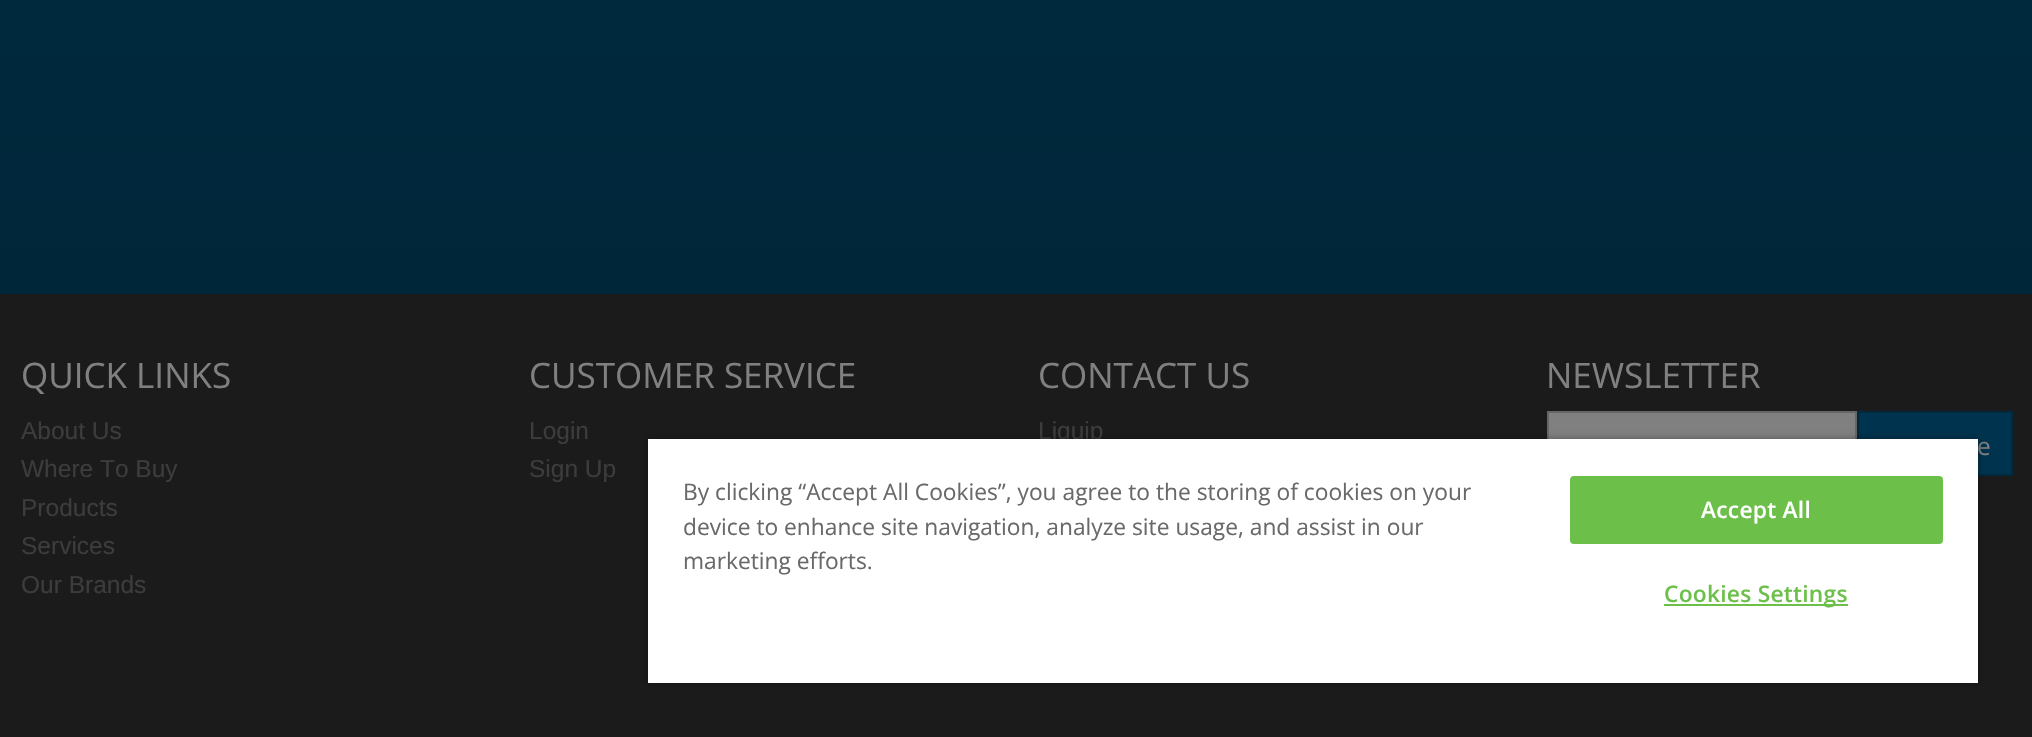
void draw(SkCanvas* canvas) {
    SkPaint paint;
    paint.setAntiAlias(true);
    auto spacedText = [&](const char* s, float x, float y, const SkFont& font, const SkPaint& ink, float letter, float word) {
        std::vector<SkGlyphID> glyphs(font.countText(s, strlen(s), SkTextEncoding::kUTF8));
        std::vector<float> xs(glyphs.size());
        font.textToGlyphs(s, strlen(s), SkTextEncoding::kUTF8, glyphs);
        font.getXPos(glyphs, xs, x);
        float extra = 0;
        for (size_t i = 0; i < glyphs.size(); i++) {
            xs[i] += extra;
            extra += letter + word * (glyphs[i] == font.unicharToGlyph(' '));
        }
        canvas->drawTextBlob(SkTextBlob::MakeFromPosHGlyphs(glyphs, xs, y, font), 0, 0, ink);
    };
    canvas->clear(0xFF1B1B1B);
    {
        const SkColor colors[] = {0xFF00334D, 0xFF002639};
        const float stops[] = {0, 1};
        const SkPoint ends[] = {{1017, -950}, {1017, 294}};
        paint.setShader(SkGradientShader::MakeLinear(ends, colors, stops, 2, SkTileMode::kClamp));
        paint.setAlpha(255);
    }
    canvas->drawRect(SkRect::MakeXYWH(0, 0, 2032, 294), paint);
    SkFont font1(fontMgr->matchFamilyStyle("Open Sans", SkFontStyle::Normal()), 35);
    font1.setSubpixel(true);
    paint.setShader(nullptr);
    paint.setColor(0xFF808080);
    canvas->drawString("QUICK LINKS", 21, 388, font1, paint);
    SkFont font2(fontMgr->matchFamilyStyle("Liberation Sans", SkFontStyle::Normal()), 24.5f);
    font2.setSubpixel(true);
    paint.setColor(0xFF3C3C3C);
    canvas->drawString("About Us", 21, 439, font2, paint);
    canvas->drawString("Where To Buy", 21, 477, font2, paint);
    canvas->drawString("Products", 21, 516, font2, paint);
    canvas->drawString("Services", 21, 554, font2, paint);
    canvas->drawString("Our Brands", 21, 593, font2, paint);
    paint.setColor(0xFF808080);
    canvas->drawString("CUSTOMER SERVICE", 529, 388, font1, paint);
    paint.setColor(0xFF3C3C3C);
    canvas->drawString("Login", 529, 439, font2, paint);
    canvas->drawString("Sign Up", 529, 477, font2, paint);
    paint.setColor(0xFF808080);
    canvas->drawString("CONTACT US", 1038, 388, font1, paint);
    paint.setColor(0xFF3C3C3C);
    canvas->drawString("Liquip", 1038, 439, font2, paint);
    paint.setColor(0xFF808080);
    canvas->drawString("NEWSLETTER", 1546, 388, font1, paint);
    canvas->drawRect(SkRect::MakeXYWH(1549, 413, 306, 26), paint);
    paint.setStyle(SkPaint::kStroke_Style);
    paint.setStrokeWidth(2);
    paint.setColor(0xFF666666);
    canvas->drawRect(SkRect::MakeXYWH(1548, 412, 308, 63), paint);
    paint.setStyle(SkPaint::kFill_Style);
    paint.setColor(0xFF00334D);
    canvas->drawRect(SkRect::MakeXYWH(1858, 412, 154, 63), paint);
    paint.setStyle(SkPaint::kStroke_Style);
    paint.setColor(0xFF00293D);
    canvas->drawRect(SkRect::MakeXYWH(1858, 412, 154, 63), paint);
    SkFont font3(fontMgr->matchFamilyStyle("Open Sans", SkFontStyle::Normal()), 24.5f);
    font3.setSubpixel(true);
    paint.setStyle(SkPaint::kFill_Style);
    paint.setColor(0xFF808080);
    canvas->drawString("e", 1977, 455, font3, paint);
    paint.setColor(0x59000000);
    paint.setMaskFilter(SkMaskFilter::MakeBlur(kNormal_SkBlurStyle, 3.5f));
    canvas->drawRect(SkRect::MakeXYWH(648, 439, 1330, 244), paint);
    paint.setMaskFilter(nullptr);
    paint.setColor(0xFFFFFFFF);
    canvas->drawRect(SkRect::MakeXYWH(648, 439, 1330, 244), paint);
    SkFont font4(fontMgr->matchFamilyStyle("Open Sans", SkFontStyle::Normal()), 22.75f);
    font4.setSubpixel(true);
    paint.setColor(0xFF696969);
    canvas->drawString("By clicking “Accept All Cookies”, you agree to the storing of cookies on your", 683, 500, font4, paint);
    canvas->drawString("device to enhance site navigation, analyze site usage, and assist in our", 683, 535, font4, paint);
    canvas->drawString("marketing efforts.", 683, 569, font4, paint);
    paint.setColor(0xFF6CC04A);
    canvas->drawRoundRect(SkRect::MakeXYWH(1571, 477, 371, 66), 3, 3, paint);
    paint.setStyle(SkPaint::kStroke_Style);
    canvas->drawRoundRect(SkRect::MakeXYWH(1571, 477, 371, 66), 3, 3, paint);
    SkFont font5(fontMgr->matchFamilyStyle("Open Sans", SkFontStyle(600, SkFontStyle::kNormal_Width, SkFontStyle::kUpright_Slant)), 22.75f);
    font5.setSubpixel(true);
    paint.setStyle(SkPaint::kFill_Style);
    paint.setColor(0xFFFFFFFF);
    spacedText("Accept All", 1701, 518, font5, paint, 0.25f, 0);
    paint.setColor(0xFF6CC04A);
    canvas->drawRect(SkRect::MakeXYWH(1664, 604, 184, 2), paint);
    spacedText("Cookies Settings", 1664, 602, font5, paint, 0.25f, 0);
}
